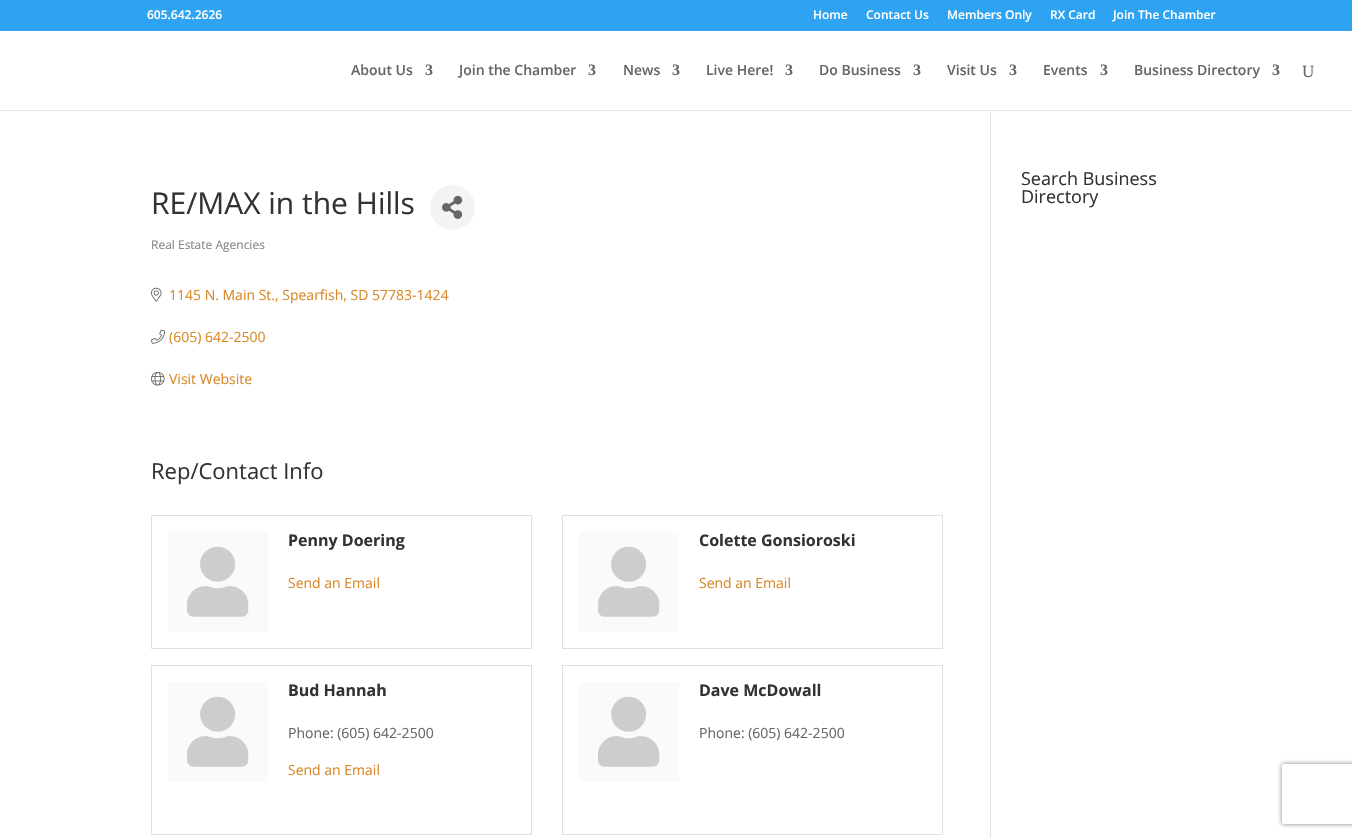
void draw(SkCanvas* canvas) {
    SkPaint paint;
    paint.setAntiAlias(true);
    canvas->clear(0xFFFFFFFF);
    paint.setColor(0xFF2EA3F2);
    canvas->drawRect(SkRect::MakeXYWH(0, 0, 1352, 31), paint);
    SkFont font1(fontMgr->matchFamilyStyle("Open Sans", SkFontStyle(600, SkFontStyle::kNormal_Width, SkFontStyle::kUpright_Slant)), 12);
    font1.setSubpixel(true);
    paint.setColor(0xFFFFFFFF);
    canvas->drawString("605.642.2626", 147, 19, font1, paint);
    canvas->drawString("Home", 813, 19, font1, paint);
    canvas->drawString("Contact Us", 866, 19, font1, paint);
    canvas->drawString("Members Only", 947, 19, font1, paint);
    canvas->drawString("RX Card", 1050, 19, font1, paint);
    canvas->drawString("Join The Chamber", 1113, 19, font1, paint);
    paint.setColor(0xFFE6E6E6);
    canvas->drawRect(SkRect::MakeXYWH(0, 110, 1352, 1), paint);
    SkFont font2(fontMgr->matchFamilyStyle("Open Sans", SkFontStyle(600, SkFontStyle::kNormal_Width, SkFontStyle::kUpright_Slant)), 14);
    font2.setSubpixel(true);
    paint.setColor(0xFF666666);
    canvas->drawString("About Us", 351, 75, font2, paint);
    SkFont font3(fontMgr->matchFamilyStyle("Liberation Serif", SkFontStyle::Bold()), 16);
    font3.setSubpixel(true);
    canvas->drawString("3", 425, 75, font3, paint);
    canvas->drawString("Join the Chamber", 459, 75, font2, paint);
    canvas->drawString("3", 588, 75, font3, paint);
    canvas->drawString("News", 623, 75, font2, paint);
    canvas->drawString("3", 672, 75, font3, paint);
    canvas->drawString("Live Here!", 706, 75, font2, paint);
    canvas->drawString("3", 785, 75, font3, paint);
    canvas->drawString("Do Business", 819, 75, font2, paint);
    canvas->drawString("3", 913, 75, font3, paint);
    canvas->drawString("Visit Us", 947, 75, font2, paint);
    canvas->drawString("3", 1009, 75, font3, paint);
    canvas->drawString("Events", 1043, 75, font2, paint);
    canvas->drawString("3", 1100, 75, font3, paint);
    canvas->drawString("Business Directory", 1134, 75, font2, paint);
    canvas->drawString("3", 1272, 75, font3, paint);
    SkFont font4(fontMgr->matchFamilyStyle("Liberation Serif", SkFontStyle::Normal()), 17);
    font4.setSubpixel(true);
    canvas->drawString("U", 1302, 77, font4, paint);
    paint.setColor(0xFFE2E2E2);
    canvas->drawRect(SkRect::MakeXYWH(990, 111, 1, 727), paint);
    SkFont font5(fontMgr->matchFamilyStyle("Open Sans", SkFontStyle::Normal()), 30);
    font5.setSubpixel(true);
    paint.setColor(0xFF333333);
    canvas->drawString("RE/MAX in the Hills", 151, 214, font5, paint);
    paint.setColor(0xFFF3F3F3);
    canvas->drawCircle(452.5f, 207.5f, 22.5f, paint);
    canvas->drawImageRect(SkImages::DeferredFromEncodedData(SkData::MakeFromFileName("img1.png")), SkRect::MakeXYWH(442, 195, 21, 24), SkSamplingOptions());
    SkFont font6(fontMgr->matchFamilyStyle("Open Sans", SkFontStyle::Normal()), 12);
    font6.setSubpixel(true);
    paint.setColor(0xFF858585);
    canvas->drawString("Real Estate Agencies", 151, 249, font6, paint);
    canvas->drawImageRect(SkImages::DeferredFromEncodedData(SkData::MakeFromFileName("img2.png")), SkRect::MakeXYWH(151, 287, 11, 15), SkSamplingOptions());
    SkFont font7(fontMgr->matchFamilyStyle("Open Sans", SkFontStyle::Normal()), 14);
    font7.setSubpixel(true);
    paint.setColor(0xFFD98827);
    canvas->drawString("1145 N. Main St., Spearfish, SD 57783-1424", 169, 300, font7, paint);
    canvas->drawImageRect(SkImages::DeferredFromEncodedData(SkData::MakeFromFileName("img3.png")), SkRect::MakeXYWH(151, 329, 14, 15), SkSamplingOptions());
    canvas->drawString("(605) 642-2500", 169, 342, font7, paint);
    canvas->drawImageRect(SkImages::DeferredFromEncodedData(SkData::MakeFromFileName("img4.png")), SkRect::MakeXYWH(151, 372, 14, 14), SkSamplingOptions());
    canvas->drawString("Visit Website", 169, 384, font7, paint);
    SkFont font8(fontMgr->matchFamilyStyle("Open Sans", SkFontStyle::Normal()), 22);
    font8.setSubpixel(true);
    paint.setColor(0xFF333333);
    canvas->drawString("Rep/Contact Info", 151, 479, font8, paint);
    paint.setStyle(SkPaint::kStroke_Style);
    paint.setStrokeWidth(1);
    paint.setColor(0xFFDFDFDF);
    canvas->drawRect(SkRect::MakeXYWH(151.5f, 515.5f, 380, 133), paint);
    paint.setStyle(SkPaint::kFill_Style);
    paint.setColor(0xFFFAFAFA);
    canvas->drawRect(SkRect::MakeXYWH(168, 532, 100, 100), paint);
    canvas->drawImageRect(SkImages::DeferredFromEncodedData(SkData::MakeFromFileName("img5.png")), SkRect::MakeXYWH(187, 546, 62, 71), SkSamplingOptions());
    SkFont font9(fontMgr->matchFamilyStyle("Open Sans", SkFontStyle::Bold()), 16);
    font9.setSubpixel(true);
    paint.setColor(0xFF333333);
    canvas->drawString("Penny Doering", 288, 546, font9, paint);
    paint.setColor(0xFFD98827);
    canvas->drawString("Send an Email", 288, 588, font7, paint);
    paint.setStyle(SkPaint::kStroke_Style);
    paint.setColor(0xFFDFDFDF);
    canvas->drawRect(SkRect::MakeXYWH(562.5f, 515.5f, 380, 133), paint);
    paint.setStyle(SkPaint::kFill_Style);
    paint.setColor(0xFFFAFAFA);
    canvas->drawRect(SkRect::MakeXYWH(579, 532, 100, 100), paint);
    canvas->drawImageRect(SkImages::DeferredFromEncodedData(SkData::MakeFromFileName("img5.png")), SkRect::MakeXYWH(598, 546, 62, 71), SkSamplingOptions());
    paint.setColor(0xFF333333);
    canvas->drawString("Colette Gonsioroski", 699, 546, font9, paint);
    paint.setColor(0xFFD98827);
    canvas->drawString("Send an Email", 699, 588, font7, paint);
    paint.setStyle(SkPaint::kStroke_Style);
    paint.setColor(0xFFDFDFDF);
    canvas->drawRect(SkRect::MakeXYWH(151.5f, 665.5f, 380, 169), paint);
    paint.setStyle(SkPaint::kFill_Style);
    paint.setColor(0xFFFAFAFA);
    canvas->drawRect(SkRect::MakeXYWH(168, 682, 100, 100), paint);
    canvas->drawImageRect(SkImages::DeferredFromEncodedData(SkData::MakeFromFileName("img5.png")), SkRect::MakeXYWH(187, 696, 62, 71), SkSamplingOptions());
    paint.setColor(0xFF333333);
    canvas->drawString("Bud Hannah", 288, 696, font9, paint);
    paint.setColor(0xFF666666);
    canvas->drawString("Phone: (605) 642-2500", 288, 738, font7, paint);
    paint.setColor(0xFFD98827);
    canvas->drawString("Send an Email", 288, 775, font7, paint);
    paint.setStyle(SkPaint::kStroke_Style);
    paint.setColor(0xFFDFDFDF);
    canvas->drawRect(SkRect::MakeXYWH(562.5f, 665.5f, 380, 169), paint);
    paint.setStyle(SkPaint::kFill_Style);
    paint.setColor(0xFFFAFAFA);
    canvas->drawRect(SkRect::MakeXYWH(579, 682, 100, 100), paint);
    canvas->drawImageRect(SkImages::DeferredFromEncodedData(SkData::MakeFromFileName("img5.png")), SkRect::MakeXYWH(598, 696, 62, 71), SkSamplingOptions());
    paint.setColor(0xFF333333);
    canvas->drawString("Dave McDowall", 699, 696, font9, paint);
    paint.setColor(0xFF666666);
    canvas->drawString("Phone: (605) 642-2500", 699, 738, font7, paint);
    SkFont font10(fontMgr->matchFamilyStyle("Open Sans", SkFontStyle::Normal()), 18);
    font10.setSubpixel(true);
    paint.setColor(0xFF333333);
    canvas->drawString("Search Business", 1021, 185, font10, paint);
    canvas->drawString("Directory", 1021, 203, font10, paint);
    canvas->save();
    canvas->clipPath(SkPathBuilder(SkPathFillType::kEvenOdd).moveTo(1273, 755).lineTo(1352, 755).lineTo(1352, 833).lineTo(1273, 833).close().moveTo(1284, 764).lineTo(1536, 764).cubicTo(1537, 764, 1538, 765, 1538, 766).lineTo(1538, 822).cubicTo(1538, 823, 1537, 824, 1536, 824).lineTo(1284, 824).cubicTo(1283, 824, 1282, 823, 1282, 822).lineTo(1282, 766).cubicTo(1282, 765, 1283, 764, 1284, 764).close().detach(), true);
    paint.setColor(0xFF808080);
    paint.setMaskFilter(SkMaskFilter::MakeBlur(kNormal_SkBlurStyle, 2.5f));
    canvas->drawRoundRect(SkRect::MakeXYWH(1282, 764, 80, 60), 2, 2, paint);
    paint.setMaskFilter(nullptr);
    canvas->restore();
}
